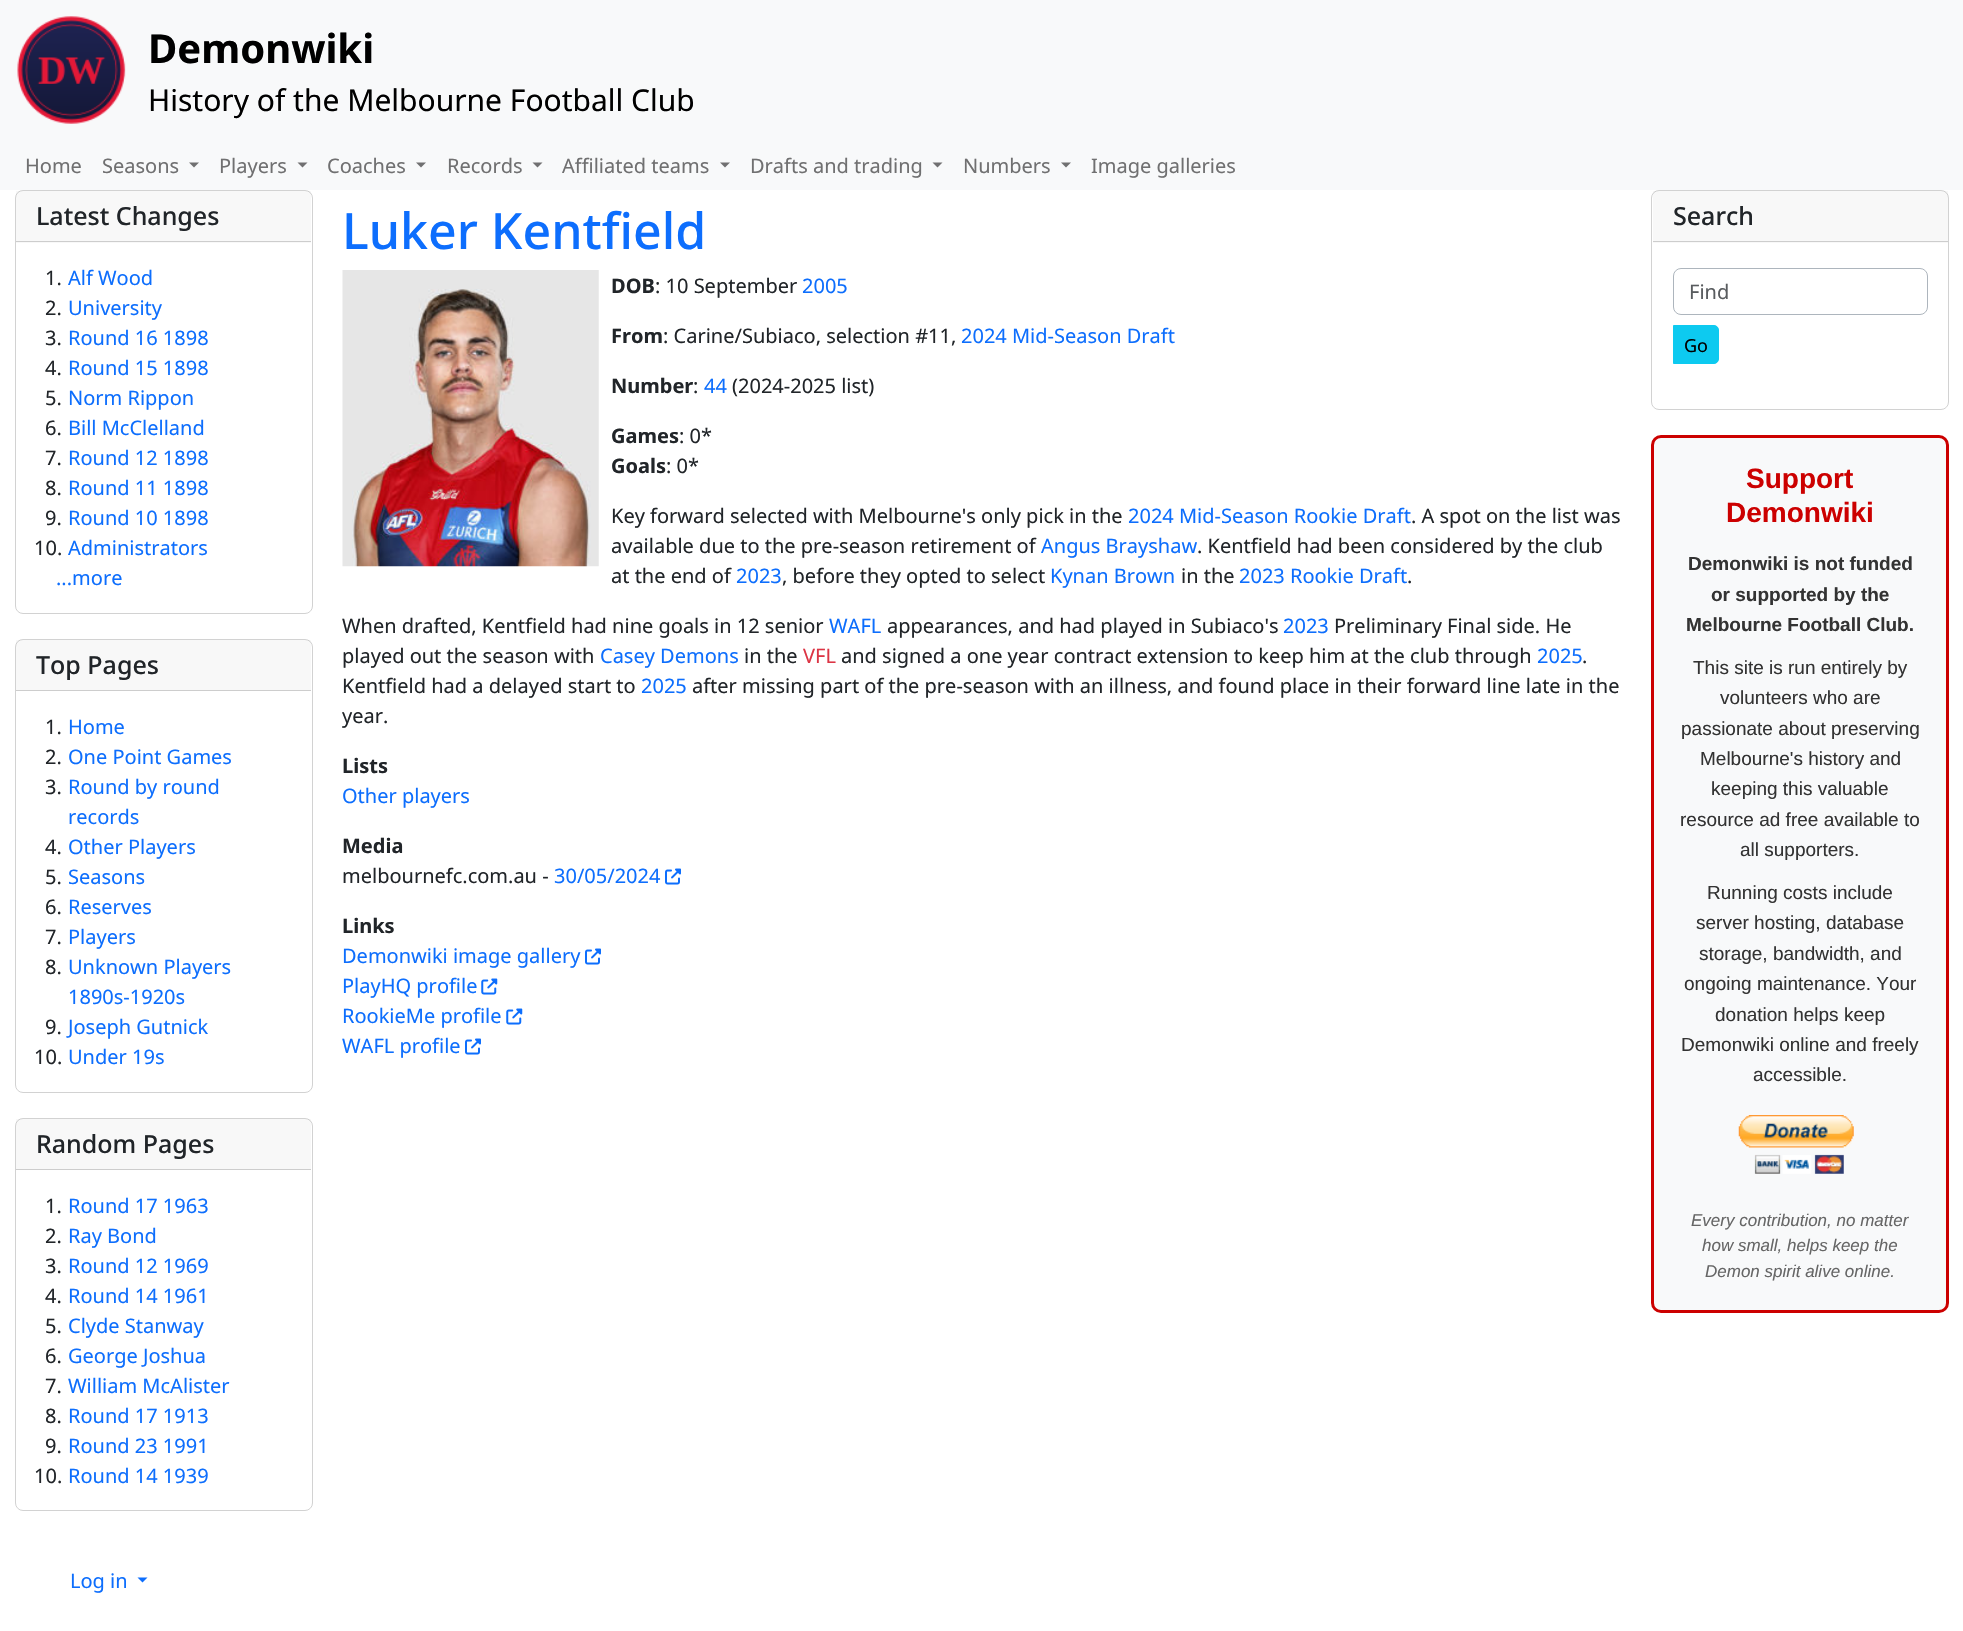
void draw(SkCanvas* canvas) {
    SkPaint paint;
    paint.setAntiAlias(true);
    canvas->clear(0xFFFFFFFF);
    paint.setColor(0xFFF8F9FA);
    canvas->drawRect(SkRect::MakeXYWH(0, 0, 1963, 190), paint);
    canvas->drawImageRect(SkImages::DeferredFromEncodedData(SkData::MakeFromFileName("img1.png")), SkRect::MakeXYWH(17, 16, 109, 108), SkSamplingOptions());
    SkFont font1(fontMgr->matchFamilyStyle("Noto Sans", SkFontStyle::Bold()), 40);
    font1.setSubpixel(true);
    paint.setColor(0xFF000000);
    canvas->drawString("Demonwiki", 148, 63, font1, paint);
    SkFont font2(fontMgr->matchFamilyStyle("Noto Sans", SkFontStyle::Normal()), 30);
    font2.setSubpixel(true);
    canvas->drawString("History of the Melbourne Football Club", 148, 111, font2, paint);
    SkFont font3(fontMgr->matchFamilyStyle("Noto Sans", SkFontStyle::Normal()), 20);
    font3.setSubpixel(true);
    paint.setColor(0xFF707071);
    canvas->drawString("Home", 25, 173, font3, paint);
    canvas->drawString("Seasons", 102, 173, font3, paint);
    canvas->drawPath(SkPathBuilder().moveTo(189, 162.5f).lineTo(199, 162.5f).lineTo(194, 167.5f).close().detach(), paint);
    canvas->drawString("Players", 219, 173, font3, paint);
    canvas->drawPath(SkPathBuilder().moveTo(297.5f, 162.5f).lineTo(307.5f, 162.5f).lineTo(302.5f, 167.5f).close().detach(), paint);
    canvas->drawString("Coaches", 327, 173, font3, paint);
    canvas->drawPath(SkPathBuilder().moveTo(416, 162.5f).lineTo(426, 162.5f).lineTo(421, 167.5f).close().detach(), paint);
    canvas->drawString("Records", 447, 173, font3, paint);
    canvas->drawPath(SkPathBuilder().moveTo(532.5f, 162.5f).lineTo(542.5f, 162.5f).lineTo(537.5f, 167.5f).close().detach(), paint);
    canvas->drawString("Affiliated teams", 562, 173, font3, paint);
    canvas->drawPath(SkPathBuilder().moveTo(720, 162.5f).lineTo(730, 162.5f).lineTo(725, 167.5f).close().detach(), paint);
    canvas->drawString("Drafts and trading", 750, 173, font3, paint);
    canvas->drawPath(SkPathBuilder().moveTo(932.5f, 162.5f).lineTo(942.5f, 162.5f).lineTo(937.5f, 167.5f).close().detach(), paint);
    canvas->drawString("Numbers", 963, 173, font3, paint);
    canvas->drawPath(SkPathBuilder().moveTo(1061, 162.5f).lineTo(1071, 162.5f).lineTo(1066, 167.5f).close().detach(), paint);
    canvas->drawString("Image galleries", 1091, 173, font3, paint);
    paint.setStyle(SkPaint::kStroke_Style);
    paint.setStrokeWidth(1);
    paint.setColor(0xFFD2D2D2);
    canvas->drawRoundRect(SkRect::MakeXYWH(15.5f, 190.5f, 297, 423), 7.5f, 7.5f, paint);
    paint.setStyle(SkPaint::kFill_Style);
    paint.setColor(0x08212529);
    canvas->drawRect(SkRect::MakeXYWH(16, 191, 295, 52), paint);
    paint.setColor(0xFFCDCDCD);
    canvas->drawRect(SkRect::MakeXYWH(16, 241, 295, 1), paint);
    SkFont font4(fontMgr->matchFamilyStyle("Noto Sans", SkFontStyle(500, SkFontStyle::kNormal_Width, SkFontStyle::kUpright_Slant)), 25);
    font4.setSubpixel(true);
    paint.setColor(0xFF212529);
    canvas->drawString("Latest Changes", 36, 225, font4, paint);
    canvas->drawString("1.", 45, 285, font3, paint);
    paint.setColor(0xFF0D6EFD);
    canvas->drawString("Alf Wood", 68, 285, font3, paint);
    paint.setColor(0xFF212529);
    canvas->drawString("2.", 45, 315, font3, paint);
    paint.setColor(0xFF0D6EFD);
    canvas->drawString("University", 68, 315, font3, paint);
    paint.setColor(0xFF212529);
    canvas->drawString("3.", 45, 345, font3, paint);
    paint.setColor(0xFF0D6EFD);
    canvas->drawString("Round 16 1898", 68, 345, font3, paint);
    paint.setColor(0xFF212529);
    canvas->drawString("4.", 45, 375, font3, paint);
    paint.setColor(0xFF0D6EFD);
    canvas->drawString("Round 15 1898", 68, 375, font3, paint);
    paint.setColor(0xFF212529);
    canvas->drawString("5.", 45, 405, font3, paint);
    paint.setColor(0xFF0D6EFD);
    canvas->drawString("Norm Rippon", 68, 405, font3, paint);
    paint.setColor(0xFF212529);
    canvas->drawString("6.", 45, 435, font3, paint);
    paint.setColor(0xFF0D6EFD);
    canvas->drawString("Bill McClelland", 68, 435, font3, paint);
    paint.setColor(0xFF212529);
    canvas->drawString("7.", 45, 465, font3, paint);
    paint.setColor(0xFF0D6EFD);
    canvas->drawString("Round 12 1898", 68, 465, font3, paint);
    paint.setColor(0xFF212529);
    canvas->drawString("8.", 45, 495, font3, paint);
    paint.setColor(0xFF0D6EFD);
    canvas->drawString("Round 11 1898", 68, 495, font3, paint);
    paint.setColor(0xFF212529);
    canvas->drawString("9.", 45, 525, font3, paint);
    paint.setColor(0xFF0D6EFD);
    canvas->drawString("Round 10 1898", 68, 525, font3, paint);
    paint.setColor(0xFF212529);
    canvas->drawString("10.", 34, 555, font3, paint);
    paint.setColor(0xFF0D6EFD);
    canvas->drawString("Administrators", 68, 555, font3, paint);
    canvas->drawString("...more", 56, 585, font3, paint);
    paint.setStyle(SkPaint::kStroke_Style);
    paint.setColor(0xFFD2D2D2);
    canvas->drawRoundRect(SkRect::MakeXYWH(15.5f, 639.5f, 297, 453), 7.5f, 7.5f, paint);
    paint.setStyle(SkPaint::kFill_Style);
    paint.setColor(0x08212529);
    canvas->drawRect(SkRect::MakeXYWH(16, 640, 295, 50), paint);
    paint.setColor(0xFFCDCDCD);
    canvas->drawRect(SkRect::MakeXYWH(16, 690, 295, 1), paint);
    paint.setColor(0xFF212529);
    canvas->drawString("Top Pages", 36, 674, font4, paint);
    canvas->drawString("1.", 45, 734, font3, paint);
    paint.setColor(0xFF0D6EFD);
    canvas->drawString("Home", 68, 734, font3, paint);
    paint.setColor(0xFF212529);
    canvas->drawString("2.", 45, 764, font3, paint);
    paint.setColor(0xFF0D6EFD);
    canvas->drawString("One Point Games", 68, 764, font3, paint);
    paint.setColor(0xFF212529);
    canvas->drawString("3.", 45, 794, font3, paint);
    paint.setColor(0xFF0D6EFD);
    canvas->drawString("Round by round", 68, 794, font3, paint);
    canvas->drawString("records", 68, 824, font3, paint);
    paint.setColor(0xFF212529);
    canvas->drawString("4.", 45, 854, font3, paint);
    paint.setColor(0xFF0D6EFD);
    canvas->drawString("Other Players", 68, 854, font3, paint);
    paint.setColor(0xFF212529);
    canvas->drawString("5.", 45, 884, font3, paint);
    paint.setColor(0xFF0D6EFD);
    canvas->drawString("Seasons", 68, 884, font3, paint);
    paint.setColor(0xFF212529);
    canvas->drawString("6.", 45, 914, font3, paint);
    paint.setColor(0xFF0D6EFD);
    canvas->drawString("Reserves", 68, 914, font3, paint);
    paint.setColor(0xFF212529);
    canvas->drawString("7.", 45, 944, font3, paint);
    paint.setColor(0xFF0D6EFD);
    canvas->drawString("Players", 68, 944, font3, paint);
    paint.setColor(0xFF212529);
    canvas->drawString("8.", 45, 974, font3, paint);
    paint.setColor(0xFF0D6EFD);
    canvas->drawString("Unknown Players", 68, 974, font3, paint);
    canvas->drawString("1890s-1920s", 68, 1004, font3, paint);
    paint.setColor(0xFF212529);
    canvas->drawString("9.", 45, 1034, font3, paint);
    paint.setColor(0xFF0D6EFD);
    canvas->drawString("Joseph Gutnick", 68, 1034, font3, paint);
    paint.setColor(0xFF212529);
    canvas->drawString("10.", 34, 1064, font3, paint);
    paint.setColor(0xFF0D6EFD);
    canvas->drawString("Under 19s", 68, 1064, font3, paint);
    paint.setStyle(SkPaint::kStroke_Style);
    paint.setColor(0xFFD2D2D2);
    canvas->drawRoundRect(SkRect::MakeXYWH(15.5f, 1118.5f, 297, 392), 7.5f, 7.5f, paint);
    paint.setStyle(SkPaint::kFill_Style);
    paint.setColor(0x08212529);
    canvas->drawRect(SkRect::MakeXYWH(16, 1119, 295, 50), paint);
    paint.setColor(0xFFCDCDCD);
    canvas->drawRect(SkRect::MakeXYWH(16, 1169, 295, 1), paint);
    paint.setColor(0xFF212529);
    canvas->drawString("Random Pages", 36, 1153, font4, paint);
    canvas->drawString("1.", 45, 1213, font3, paint);
    paint.setColor(0xFF0D6EFD);
    canvas->drawString("Round 17 1963", 68, 1213, font3, paint);
    paint.setColor(0xFF212529);
    canvas->drawString("2.", 45, 1243, font3, paint);
    paint.setColor(0xFF0D6EFD);
    canvas->drawString("Ray Bond", 68, 1243, font3, paint);
    paint.setColor(0xFF212529);
    canvas->drawString("3.", 45, 1273, font3, paint);
    paint.setColor(0xFF0D6EFD);
    canvas->drawString("Round 12 1969", 68, 1273, font3, paint);
    paint.setColor(0xFF212529);
    canvas->drawString("4.", 45, 1303, font3, paint);
    paint.setColor(0xFF0D6EFD);
    canvas->drawString("Round 14 1961", 68, 1303, font3, paint);
    paint.setColor(0xFF212529);
    canvas->drawString("5.", 45, 1333, font3, paint);
    paint.setColor(0xFF0D6EFD);
    canvas->drawString("Clyde Stanway", 68, 1333, font3, paint);
    paint.setColor(0xFF212529);
    canvas->drawString("6.", 45, 1363, font3, paint);
    paint.setColor(0xFF0D6EFD);
    canvas->drawString("George Joshua", 68, 1363, font3, paint);
    paint.setColor(0xFF212529);
    canvas->drawString("7.", 45, 1393, font3, paint);
    paint.setColor(0xFF0D6EFD);
    canvas->drawString("William McAlister", 68, 1393, font3, paint);
    paint.setColor(0xFF212529);
    canvas->drawString("8.", 45, 1423, font3, paint);
    paint.setColor(0xFF0D6EFD);
    canvas->drawString("Round 17 1913", 68, 1423, font3, paint);
    paint.setColor(0xFF212529);
    canvas->drawString("9.", 45, 1453, font3, paint);
    paint.setColor(0xFF0D6EFD);
    canvas->drawString("Round 23 1991", 68, 1453, font3, paint);
    paint.setColor(0xFF212529);
    canvas->drawString("10.", 34, 1483, font3, paint);
    paint.setColor(0xFF0D6EFD);
    canvas->drawString("Round 14 1939", 68, 1483, font3, paint);
    SkFont font5(fontMgr->matchFamilyStyle("Noto Sans", SkFontStyle(500, SkFontStyle::kNormal_Width, SkFontStyle::kUpright_Slant)), 50);
    font5.setSubpixel(true);
    canvas->drawString("Luker Kentfield", 342, 249, font5, paint);
    canvas->drawImageRect(SkImages::DeferredFromEncodedData(SkData::MakeFromFileName("img2.png")), SkRect::MakeXYWH(342, 270, 257, 297), SkSamplingOptions());
    SkFont font6(fontMgr->matchFamilyStyle("Noto Sans", SkFontStyle::Bold()), 20);
    font6.setSubpixel(true);
    paint.setColor(0xFF212529);
    canvas->drawString("DOB", 611, 293, font6, paint);
    canvas->drawString(": 10 September", 655, 293, font3, paint);
    paint.setColor(0xFF0D6EFD);
    canvas->drawString("2005", 802, 293, font3, paint);
    paint.setColor(0xFF212529);
    canvas->drawString("From", 611, 343, font6, paint);
    canvas->drawString(": Carine/Subiaco, selection #11,", 663, 343, font3, paint);
    paint.setColor(0xFF0D6EFD);
    canvas->drawString("2024 Mid-Season Draft", 961, 343, font3, paint);
    paint.setColor(0xFF212529);
    canvas->drawString("Number", 611, 393, font6, paint);
    canvas->drawString(":", 693, 393, font3, paint);
    paint.setColor(0xFF0D6EFD);
    canvas->drawString("44", 704, 393, font3, paint);
    paint.setColor(0xFF212529);
    canvas->drawString("(2024-2025 list)", 732, 393, font3, paint);
    canvas->drawString("Games", 611, 443, font6, paint);
    canvas->drawString(": 0*", 679, 443, font3, paint);
    canvas->drawString("Goals", 611, 473, font6, paint);
    canvas->drawString(": 0*", 666, 473, font3, paint);
    canvas->drawString("Key forward selected with Melbourne's only pick in the", 611, 523, font3, paint);
    paint.setColor(0xFF0D6EFD);
    canvas->drawString("2024 Mid-Season Rookie Draft", 1128, 523, font3, paint);
    paint.setColor(0xFF212529);
    canvas->drawString(". A spot on the list was", 1411, 523, font3, paint);
    canvas->drawString("available due to the pre-season retirement of", 611, 553, font3, paint);
    paint.setColor(0xFF0D6EFD);
    canvas->drawString("Angus Brayshaw", 1041, 553, font3, paint);
    paint.setColor(0xFF212529);
    canvas->drawString(". Kentfield had been considered by the club", 1197, 553, font3, paint);
    canvas->drawString("at the end of", 611, 583, font3, paint);
    paint.setColor(0xFF0D6EFD);
    canvas->drawString("2023", 736, 583, font3, paint);
    paint.setColor(0xFF212529);
    canvas->drawString(", before they opted to select", 782, 583, font3, paint);
    paint.setColor(0xFF0D6EFD);
    canvas->drawString("Kynan Brown", 1050, 583, font3, paint);
    paint.setColor(0xFF212529);
    canvas->drawString("in the", 1181, 583, font3, paint);
    paint.setColor(0xFF0D6EFD);
    canvas->drawString("2023 Rookie Draft", 1239, 583, font3, paint);
    paint.setColor(0xFF212529);
    canvas->drawString(".", 1407, 583, font3, paint);
    canvas->drawString("When drafted, Kentfield had nine goals in 12 senior", 342, 633, font3, paint);
    paint.setColor(0xFF0D6EFD);
    canvas->drawString("WAFL", 829, 633, font3, paint);
    paint.setColor(0xFF212529);
    canvas->drawString("appearances, and had played in Subiaco's", 887, 633, font3, paint);
    paint.setColor(0xFF0D6EFD);
    canvas->drawString("2023", 1283, 633, font3, paint);
    paint.setColor(0xFF212529);
    canvas->drawString("Preliminary Final side. He", 1334, 633, font3, paint);
    canvas->drawString("played out the season with", 342, 663, font3, paint);
    paint.setColor(0xFF0D6EFD);
    canvas->drawString("Casey Demons", 600, 663, font3, paint);
    paint.setColor(0xFF212529);
    canvas->drawString("in the", 744, 663, font3, paint);
    paint.setColor(0xFFDC3545);
    canvas->drawString("VFL", 803, 663, font3, paint);
    paint.setColor(0xFF212529);
    canvas->drawString("and signed a one year contract extension to keep him at the club through", 841, 663, font3, paint);
    paint.setColor(0xFF0D6EFD);
    canvas->drawString("2025", 1537, 663, font3, paint);
    paint.setColor(0xFF212529);
    canvas->drawString(".", 1582, 663, font3, paint);
    canvas->drawString("Kentfield had a delayed start to", 342, 693, font3, paint);
    paint.setColor(0xFF0D6EFD);
    canvas->drawString("2025", 641, 693, font3, paint);
    paint.setColor(0xFF212529);
    canvas->drawString("after missing part of the pre-season with an illness, and found place in their forward line late in the", 692, 693, font3, paint);
    canvas->drawString("year.", 342, 723, font3, paint);
    canvas->drawString("Lists", 342, 773, font6, paint);
    paint.setColor(0xFF0D6EFD);
    canvas->drawString("Other players", 342, 803, font3, paint);
    paint.setColor(0xFF212529);
    canvas->drawString("Media", 342, 853, font6, paint);
    canvas->drawString("melbournefc.com.au -", 342, 883, font3, paint);
    paint.setColor(0xFF0D6EFD);
    canvas->drawString("30/05/2024", 554, 883, font3, paint);
    canvas->drawImageRect(SkImages::DeferredFromEncodedData(SkData::MakeFromFileName("img3.png")), SkRect::MakeXYWH(665, 868, 16, 17), SkSamplingOptions());
    paint.setColor(0xFF212529);
    canvas->drawString("Links", 342, 933, font6, paint);
    paint.setColor(0xFF0D6EFD);
    canvas->drawString("Demonwiki image gallery", 342, 963, font3, paint);
    canvas->drawImageRect(SkImages::DeferredFromEncodedData(SkData::MakeFromFileName("img3.png")), SkRect::MakeXYWH(585, 948, 16, 17), SkSamplingOptions());
    canvas->drawString("PlayHQ profile", 342, 993, font3, paint);
    canvas->drawImageRect(SkImages::DeferredFromEncodedData(SkData::MakeFromFileName("img4.png")), SkRect::MakeXYWH(481, 978, 17, 17), SkSamplingOptions());
    canvas->drawString("RookieMe profile", 342, 1023, font3, paint);
    canvas->drawImageRect(SkImages::DeferredFromEncodedData(SkData::MakeFromFileName("img4.png")), SkRect::MakeXYWH(506, 1008, 17, 17), SkSamplingOptions());
    canvas->drawString("WAFL profile", 342, 1053, font3, paint);
    canvas->drawImageRect(SkImages::DeferredFromEncodedData(SkData::MakeFromFileName("img3.png")), SkRect::MakeXYWH(465, 1038, 16, 17), SkSamplingOptions());
    paint.setStyle(SkPaint::kStroke_Style);
    paint.setColor(0xFFD2D2D2);
    canvas->drawRoundRect(SkRect::MakeXYWH(1651.5f, 190.5f, 297, 219), 7.5f, 7.5f, paint);
    paint.setStyle(SkPaint::kFill_Style);
    paint.setColor(0x08212529);
    canvas->drawRect(SkRect::MakeXYWH(1653, 191, 295, 52), paint);
    paint.setColor(0xFFCDCDCD);
    canvas->drawRect(SkRect::MakeXYWH(1653, 241, 295, 1), paint);
    paint.setColor(0xFF212529);
    canvas->drawString("Search", 1673, 225, font4, paint);
    paint.setStyle(SkPaint::kStroke_Style);
    paint.setColor(0xFFADB5BD);
    canvas->drawRoundRect(SkRect::MakeXYWH(1673.5f, 268.5f, 254, 46), 7.5f, 7.5f, paint);
    paint.setStyle(SkPaint::kFill_Style);
    paint.setColor(0xFF595C5F);
    canvas->drawString("Find", 1689, 299, font3, paint);
    paint.setColor(0xFF0DCAF0);
    canvas->drawPath(SkPathBuilder().moveTo(1673.5f, 325.5f).lineTo(1714, 325.5f).cubicTo(1716.5f, 325.5f, 1718.5f, 327.5f, 1718.5f, 330).lineTo(1718.5f, 359).cubicTo(1718.5f, 361.5f, 1716.5f, 363.5f, 1714, 363.5f).lineTo(1673.5f, 363.5f).close().detach(), paint);
    paint.setStyle(SkPaint::kStroke_Style);
    canvas->drawPath(SkPathBuilder().moveTo(1673.5f, 325.5f).lineTo(1714, 325.5f).cubicTo(1716.5f, 325.5f, 1718.5f, 327.5f, 1718.5f, 330).lineTo(1718.5f, 359).cubicTo(1718.5f, 361.5f, 1716.5f, 363.5f, 1714, 363.5f).lineTo(1673.5f, 363.5f).close().detach(), paint);
    SkFont font7(fontMgr->matchFamilyStyle("Noto Sans", SkFontStyle::Normal()), 18);
    font7.setSubpixel(true);
    paint.setStyle(SkPaint::kFill_Style);
    paint.setColor(0xFF000000);
    canvas->drawString("Go", 1684, 352, font7, paint);
    paint.setColor(0xFFF8F9FA);
    canvas->drawRoundRect(SkRect::MakeXYWH(1652.5f, 436.5f, 295, 875), 8.5f, 8.5f, paint);
    paint.setStyle(SkPaint::kStroke_Style);
    paint.setStrokeWidth(3);
    paint.setColor(0xFFCC0000);
    canvas->drawRoundRect(SkRect::MakeXYWH(1652.5f, 436.5f, 295, 875), 8.5f, 8.5f, paint);
    SkFont font8(fontMgr->matchFamilyStyle("Liberation Sans", SkFontStyle::Bold()), 28);
    font8.setSubpixel(true);
    paint.setStyle(SkPaint::kFill_Style);
    canvas->drawString("Support", 1746, 488, font8, paint);
    canvas->drawString("Demonwiki", 1726, 522, font8, paint);
    SkFont font9(fontMgr->matchFamilyStyle("Liberation Sans", SkFontStyle::Bold()), 19);
    font9.setSubpixel(true);
    paint.setColor(0xFF333333);
    canvas->drawString("Demonwiki is not funded", 1688, 570, font9, paint);
    canvas->drawString("or supported by the", 1711, 601, font9, paint);
    canvas->drawString("Melbourne Football Club.", 1686, 631, font9, paint);
    SkFont font10(fontMgr->matchFamilyStyle("Liberation Sans", SkFontStyle::Normal()), 19);
    font10.setSubpixel(true);
    canvas->drawString("This site is run entirely by", 1693, 674, font10, paint);
    canvas->drawString("volunteers who are", 1720, 704, font10, paint);
    canvas->drawString("passionate about preserving", 1681, 735, font10, paint);
    canvas->drawString("Melbourne's history and", 1700, 765, font10, paint);
    canvas->drawString("keeping this valuable", 1711, 795, font10, paint);
    canvas->drawString("resource ad free available to", 1680, 826, font10, paint);
    canvas->drawString("all supporters.", 1740, 856, font10, paint);
    canvas->drawString("Running costs include", 1707, 899, font10, paint);
    canvas->drawString("server hosting, database", 1696, 929, font10, paint);
    canvas->drawString("storage, bandwidth, and", 1699, 960, font10, paint);
    canvas->drawString("ongoing maintenance. Your", 1684, 990, font10, paint);
    canvas->drawString("donation helps keep", 1715, 1021, font10, paint);
    canvas->drawString("Demonwiki online and freely", 1681, 1051, font10, paint);
    canvas->drawString("accessible.", 1753, 1081, font10, paint);
    canvas->drawImageRect(SkImages::DeferredFromEncodedData(SkData::MakeFromFileName("img5.png")), SkRect::MakeXYWH(1738, 1115, 116, 59), SkSamplingOptions());
    SkFont font11(fontMgr->matchFamilyStyle("Liberation Sans", SkFontStyle::Italic()), 17);
    font11.setSubpixel(true);
    paint.setColor(0xFF666666);
    canvas->drawString("Every contribution, no matter", 1691, 1226, font11, paint);
    canvas->drawString("how small, helps keep the", 1702, 1251, font11, paint);
    canvas->drawString("Demon spirit alive online.", 1705, 1277, font11, paint);
    paint.setColor(0xFF0D6EFD);
    canvas->drawString("Log in", 70, 1588, font3, paint);
    canvas->drawPath(SkPathBuilder().moveTo(137.5f, 1577.5f).lineTo(147.5f, 1577.5f).lineTo(142.5f, 1582.5f).close().detach(), paint);
}
